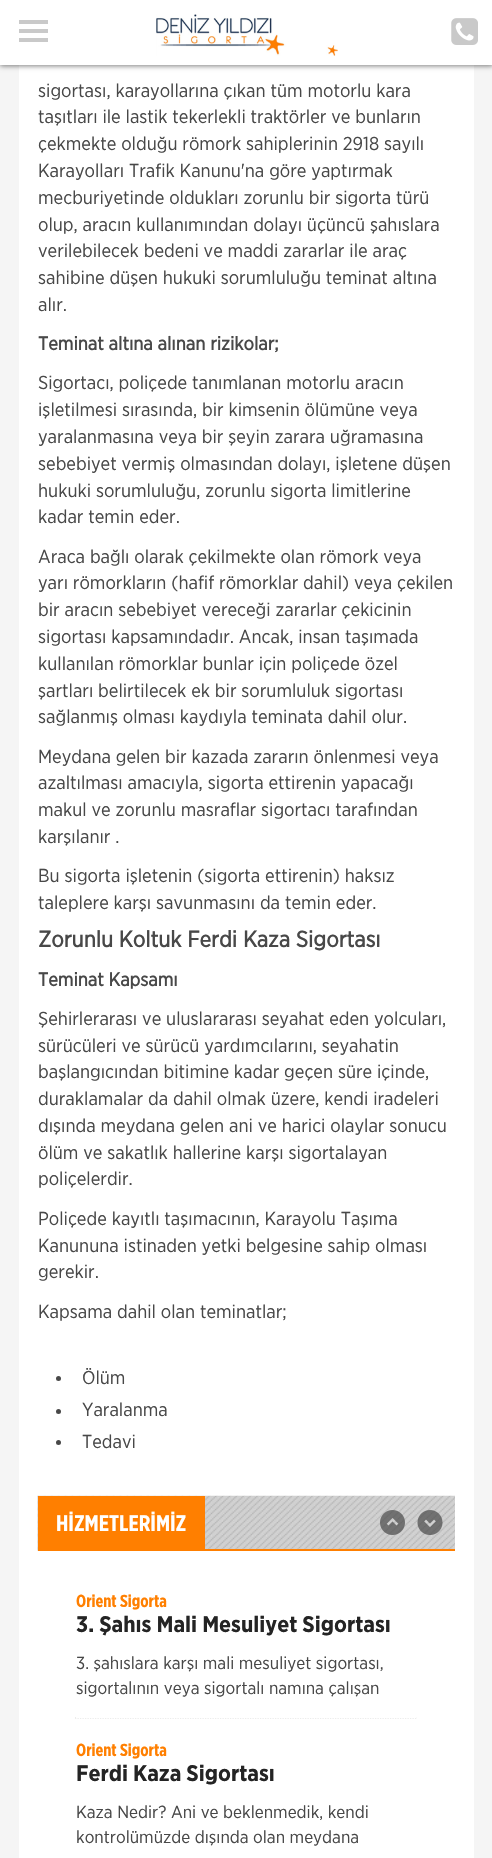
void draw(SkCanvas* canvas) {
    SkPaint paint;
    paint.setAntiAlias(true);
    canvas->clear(0xFFF5F5F5);
    paint.setColor(0xFFFFFFFF);
    canvas->drawRect(SkRect::MakeXYWH(19, 65, 455, 1793), paint);
    paint.setColor(0x80000000);
    paint.setMaskFilter(SkMaskFilter::MakeBlur(kNormal_SkBlurStyle, 2.5f));
    canvas->drawRect(SkRect::MakeXYWH(0, 1, 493, 65), paint);
    paint.setMaskFilter(nullptr);
    paint.setColor(0xFFFFFFFF);
    canvas->drawRect(SkRect::MakeXYWH(0, 0, 492, 65), paint);
    canvas->drawImageRect(SkImages::DeferredFromEncodedData(SkData::MakeFromFileName("img1.png")), SkRect::MakeXYWH(156, 14, 182, 42), SkSamplingOptions());
    paint.setColor(0xFFC9C9C9);
    canvas->drawRect(SkRect::MakeXYWH(19, 29, 29, 4), paint);
    canvas->drawRect(SkRect::MakeXYWH(19, 20, 29, 4), paint);
    canvas->drawRect(SkRect::MakeXYWH(19, 38, 29, 4), paint);
    canvas->drawImageRect(SkImages::DeferredFromEncodedData(SkData::MakeFromFileName("img2.png")), SkRect::MakeXYWH(451, 18, 27, 27), SkSamplingOptions());
    SkFont font1(fontMgr->matchFamilyStyle("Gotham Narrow", SkFontStyle::Normal()), 18.75f);
    font1.setSubpixel(true);
    paint.setColor(0xFF484848);
    canvas->drawString("sigortası, karayollarına çıkan tüm motorlu kara", 38, 97, font1, paint);
    canvas->drawString("taşıtları ile lastik tekerlekli traktörler ve bunların", 38, 123, font1, paint);
    canvas->drawString("çekmekte olduğu römork sahiplerinin 2918 sayılı", 38, 150, font1, paint);
    canvas->drawString("Karayolları Trafik Kanunu'na göre yaptırmak", 38, 177, font1, paint);
    canvas->drawString("mecburiyetinde oldukları zorunlu bir sigorta türü", 38, 204, font1, paint);
    canvas->drawString("olup, aracın kullanımından dolayı üçüncü şahıslara", 38, 231, font1, paint);
    canvas->drawString("verilebilecek bedeni ve maddi zararlar ile araç", 38, 257, font1, paint);
    canvas->drawString("sahibine düşen hukuki sorumluluğu teminat altına", 38, 284, font1, paint);
    canvas->drawString("alır.", 38, 311, font1, paint);
    SkFont font2(fontMgr->matchFamilyStyle("Gotham Narrow", SkFontStyle::Bold()), 18.75f);
    font2.setSubpixel(true);
    canvas->drawString("Teminat altına alınan rizikolar;", 38, 350, font2, paint);
    canvas->drawString("Sigortacı, poliçede tanımlanan motorlu aracın", 38, 389, font1, paint);
    canvas->drawString("işletilmesi sırasında, bir kimsenin ölümüne veya", 38, 416, font1, paint);
    canvas->drawString("yaralanmasına veya bir şeyin zarara uğramasına", 38, 443, font1, paint);
    canvas->drawString("sebebiyet vermiş olmasından dolayı, işletene düşen", 38, 470, font1, paint);
    canvas->drawString("hukuki sorumluluğu, zorunlu sigorta limitlerine", 38, 497, font1, paint);
    canvas->drawString("kadar temin eder.", 38, 523, font1, paint);
    canvas->drawString("Araca bağlı olarak çekilmekte olan römork veya", 38, 563, font1, paint);
    canvas->drawString("yarı römorkların (hafif römorklar dahil) veya çekilen", 38, 589, font1, paint);
    canvas->drawString("bir aracın sebebiyet vereceği zararlar çekicinin", 38, 616, font1, paint);
    canvas->drawString("sigortası kapsamındadır. Ancak, insan taşımada", 38, 643, font1, paint);
    canvas->drawString("kullanılan römorklar bunlar için poliçede özel", 38, 670, font1, paint);
    canvas->drawString("şartları belirtilecek ek bir sorumluluk sigortası", 38, 697, font1, paint);
    canvas->drawString("sağlanmış olması kaydıyla teminata dahil olur.", 38, 723, font1, paint);
    canvas->drawString("Meydana gelen bir kazada zararın önlenmesi veya", 38, 763, font1, paint);
    canvas->drawString("azaltılması amacıyla, sigorta ettirenin yapacağı", 38, 789, font1, paint);
    canvas->drawString("makul ve zorunlu masraflar sigortacı tarafından", 38, 816, font1, paint);
    canvas->drawString("karşılanır .", 38, 843, font1, paint);
    canvas->drawString("Bu sigorta işletenin (sigorta ettirenin) haksız", 38, 882, font1, paint);
    canvas->drawString("taleplere karşı savunmasını da temin eder.", 38, 909, font1, paint);
    SkFont font3(fontMgr->matchFamilyStyle("Gotham Narrow", SkFontStyle::Bold()), 22.5f);
    font3.setSubpixel(true);
    canvas->drawString("Zorunlu Koltuk Ferdi Kaza Sigortası", 38, 947, font3, paint);
    canvas->drawString("Teminat Kapsamı", 38, 986, font2, paint);
    canvas->drawString("Şehirlerarası ve uluslararası seyahat eden yolcuları,", 38, 1025, font1, paint);
    canvas->drawString("sürücüleri ve sürücü yardımcılarını, seyahatin", 38, 1052, font1, paint);
    canvas->drawString("başlangıcından bitimine kadar geçen süre içinde,", 38, 1078, font1, paint);
    canvas->drawString("duraklamalar da dahil olmak üzere, kendi iradeleri", 38, 1105, font1, paint);
    canvas->drawString("dışında meydana gelen ani ve harici olaylar sonucu", 38, 1132, font1, paint);
    canvas->drawString("ölüm ve sakatlık hallerine karşı sigortalayan", 38, 1159, font1, paint);
    canvas->drawString("poliçelerdir.", 38, 1185, font1, paint);
    canvas->drawString("Poliçede kayıtlı taşımacının, Karayolu Taşıma", 38, 1225, font1, paint);
    canvas->drawString("Kanununa istinaden yetki belgesine sahip olması", 38, 1252, font1, paint);
    canvas->drawString("gerekir.", 38, 1278, font1, paint);
    canvas->drawString("Kapsama dahil olan teminatlar;", 38, 1318, font1, paint);
    canvas->drawCircle(58.5f, 1378.5f, 2.5f, paint);
    canvas->drawString("Ölüm", 82, 1384, font1, paint);
    canvas->drawCircle(58.5f, 1411.5f, 2.5f, paint);
    canvas->drawString("Yaralanma", 82, 1416, font1, paint);
    canvas->drawCircle(58.5f, 1442.5f, 2.5f, paint);
    canvas->drawString("Tedavi", 82, 1448, font1, paint);
    canvas->drawImageRect(SkImages::DeferredFromEncodedData(SkData::MakeFromFileName("img3.png")), SkRect::MakeXYWH(37, 1495, 418, 56), SkSamplingOptions());
    paint.setColor(0xFFFF7F00);
    canvas->drawRect(SkRect::MakeXYWH(38, 1549, 417, 2), paint);
    canvas->drawRect(SkRect::MakeXYWH(38, 1496, 167, 53), paint);
    SkFont font4(fontMgr->matchFamilyStyle("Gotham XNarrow", SkFontStyle::Bold()), 22.5f);
    font4.setSubpixel(true);
    paint.setColor(0xFFFFFFFF);
    canvas->drawString("HİZMETLERİMİZ", 56, 1531, font4, paint);
    canvas->drawImageRect(SkImages::DeferredFromEncodedData(SkData::MakeFromFileName("img4.png")), SkRect::MakeXYWH(380, 1510, 25, 25), SkSamplingOptions());
    canvas->drawImageRect(SkImages::DeferredFromEncodedData(SkData::MakeFromFileName("img5.png")), SkRect::MakeXYWH(417, 1510, 26, 25), SkSamplingOptions());
    paint.setStyle(SkPaint::kStroke_Style);
    paint.setStrokeWidth(1.2f);
    paint.setColor(0xFFD9D9D9);
    paint.setPathEffect(SkDashPathEffect::Make({{1.25f, 1.25f}}, 0));
    canvas->drawPath(SkPathBuilder().moveTo(75, 1718).lineTo(417.5f, 1718).detach(), paint);
    paint.setPathEffect(nullptr);
    SkFont font5(fontMgr->matchFamilyStyle("Gotham XNarrow", SkFontStyle::Bold()), 17.5f);
    font5.setSubpixel(true);
    paint.setStyle(SkPaint::kFill_Style);
    paint.setColor(0xFFFF7F00);
    canvas->drawString("Orient Sigorta", 76, 1607, font5, paint);
    SkFont font6(fontMgr->matchFamilyStyle("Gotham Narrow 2", SkFontStyle::Bold()), 22.5f);
    font6.setSubpixel(true);
    paint.setColor(0xFF242424);
    canvas->drawString("3. Şahıs Mali Mesuliyet Sigortası", 76, 1632, font6, paint);
    SkFont font7(fontMgr->matchFamilyStyle("Gotham Narrow", SkFontStyle::Normal()), 17.5f);
    font7.setSubpixel(true);
    paint.setColor(0xFF484848);
    canvas->drawString("3. şahıslara karşı mali mesuliyet sigortası,", 76, 1669, font7, paint);
    canvas->drawString("sigortalının veya sigortalı namına çalışan", 76, 1694, font7, paint);
    paint.setColor(0xFFFFFFFF);
    canvas->drawRect(SkRect::MakeXYWH(76, 1717, 340, 1), paint);
    paint.setColor(0xFFFF7F00);
    canvas->drawString("Orient Sigorta", 76, 1756, font5, paint);
    paint.setColor(0xFF242424);
    canvas->drawString("Ferdi Kaza Sigortası", 76, 1781, font6, paint);
    paint.setColor(0xFF484848);
    canvas->drawString("Kaza Nedir? Ani ve beklenmedik, kendi", 76, 1818, font7, paint);
    canvas->drawString("kontrolümüzde dışında olan meydana", 76, 1843, font7, paint);
}
